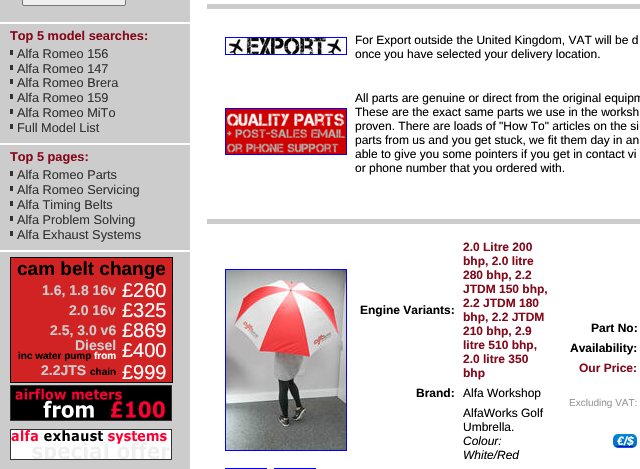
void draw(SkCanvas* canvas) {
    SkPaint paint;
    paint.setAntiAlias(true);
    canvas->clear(0xFFFFFFFF);
    paint.setColor(0xFFCCCCCC);
    canvas->drawRect(SkRect::MakeXYWH(0, 0, 190, 469), paint);
    paint.setColor(0xFFFFFFFF);
    canvas->drawRect(SkRect::MakeXYWH(0, 22, 190, 2), paint);
    paint.setColor(0xFFEFEFEF);
    canvas->drawRoundRect(SkRect::MakeXYWH(22.5f, -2.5f, 103, 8), 1.5f, 1.5f, paint);
    paint.setStyle(SkPaint::kStroke_Style);
    paint.setStrokeWidth(1);
    paint.setColor(0xFF767676);
    canvas->drawRoundRect(SkRect::MakeXYWH(22.5f, -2.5f, 103, 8), 1.5f, 1.5f, paint);
    paint.setStyle(SkPaint::kFill_Style);
    paint.setColor(0xFFFFFFFF);
    canvas->drawRect(SkRect::MakeXYWH(0, 143, 190, 2), paint);
    SkFont font1(fontMgr->matchFamilyStyle("Liberation Sans", SkFontStyle::Bold()), 12.75f);
    font1.setSubpixel(true);
    paint.setColor(0xFF840A1B);
    canvas->drawString("Top 5 model searches:", 10, 40, font1, paint);
    SkFont font2(fontMgr->matchFamilyStyle("Liberation Sans", SkFontStyle::Normal()), 12.75f);
    font2.setSubpixel(true);
    paint.setColor(0xFF333333);
    canvas->drawString("Alfa Romeo 156", 17, 58, font2, paint);
    canvas->drawRect(SkRect::MakeXYWH(10, 50, 3, 5), paint);
    canvas->drawString("Alfa Romeo 147", 17, 73, font2, paint);
    canvas->drawRect(SkRect::MakeXYWH(10, 65, 3, 5), paint);
    canvas->drawString("Alfa Romeo Brera", 17, 87, font2, paint);
    canvas->drawRect(SkRect::MakeXYWH(10, 79, 3, 5), paint);
    canvas->drawString("Alfa Romeo 159", 17, 102, font2, paint);
    canvas->drawRect(SkRect::MakeXYWH(10, 94, 3, 5), paint);
    canvas->drawString("Alfa Romeo MiTo", 17, 117, font2, paint);
    canvas->drawRect(SkRect::MakeXYWH(10, 109, 3, 5), paint);
    canvas->drawString("Full Model List", 17, 132, font2, paint);
    canvas->drawRect(SkRect::MakeXYWH(10, 124, 3, 5), paint);
    paint.setColor(0xFFFFFFFF);
    canvas->drawRect(SkRect::MakeXYWH(0, 250, 190, 2), paint);
    paint.setColor(0xFF840A1B);
    canvas->drawString("Top 5 pages:", 10, 161, font1, paint);
    paint.setColor(0xFF333333);
    canvas->drawString("Alfa Romeo Parts", 17, 179, font2, paint);
    canvas->drawRect(SkRect::MakeXYWH(10, 171, 3, 5), paint);
    canvas->drawString("Alfa Romeo Servicing", 17, 194, font2, paint);
    canvas->drawRect(SkRect::MakeXYWH(10, 186, 3, 5), paint);
    canvas->drawString("Alfa Timing Belts", 17, 209, font2, paint);
    canvas->drawRect(SkRect::MakeXYWH(10, 201, 3, 5), paint);
    canvas->drawString("Alfa Problem Solving", 17, 224, font2, paint);
    canvas->drawRect(SkRect::MakeXYWH(10, 216, 3, 5), paint);
    canvas->drawString("Alfa Exhaust Systems", 17, 239, font2, paint);
    canvas->drawRect(SkRect::MakeXYWH(10, 231, 3, 5), paint);
    paint.setColor(0xFFD12323);
    canvas->drawRect(SkRect::MakeXYWH(11, 258, 161, 124), paint);
    paint.setColor(0xFF000000);
    canvas->drawRect(SkRect::MakeXYWH(10, 257, 163, 1), paint);
    canvas->drawRect(SkRect::MakeXYWH(172, 257, 1, 126), paint);
    canvas->drawRect(SkRect::MakeXYWH(10, 382, 163, 1), paint);
    canvas->drawRect(SkRect::MakeXYWH(10, 257, 1, 126), paint);
    SkFont font3(fontMgr->matchFamilyStyle("Liberation Sans", SkFontStyle::Bold()), 19);
    font3.setSubpixel(true);
    canvas->drawString("cam belt change", 17, 275, font3, paint);
    SkFont font4(fontMgr->matchFamilyStyle("Liberation Sans", SkFontStyle::Bold()), 14);
    font4.setSubpixel(true);
    paint.setColor(0xFFCCCCCC);
    canvas->drawString("1.6, 1.8 16v", 42, 295, font4, paint);
    SkFont font5(fontMgr->matchFamilyStyle("Liberation Sans", SkFontStyle::Normal()), 20);
    font5.setSubpixel(true);
    paint.setColor(0xFFFFFFFF);
    canvas->drawString("£260", 122, 297, font5, paint);
    paint.setColor(0xFFCCCCCC);
    canvas->drawString("2.0 16v", 69, 315, font4, paint);
    paint.setColor(0xFFFFFFFF);
    canvas->drawString("£325", 122, 317, font5, paint);
    paint.setColor(0xFFCCCCCC);
    canvas->drawString("2.5, 3.0 v6", 50, 335, font4, paint);
    paint.setColor(0xFFFFFFFF);
    canvas->drawString("£869", 122, 337, font5, paint);
    paint.setColor(0xFFCCCCCC);
    canvas->drawString("Diesel", 75, 350, font4, paint);
    SkFont font6(fontMgr->matchFamilyStyle("Liberation Sans", SkFontStyle::Bold()), 10);
    font6.setSubpixel(true);
    paint.setColor(0xFF000000);
    canvas->drawString("inc water pump", 18, 359, font6, paint);
    paint.setColor(0xFFFFFFFF);
    canvas->drawString("from", 94, 359, font6, paint);
    canvas->drawString("£400", 122, 357, font5, paint);
    paint.setColor(0xFFCCCCCC);
    canvas->drawString("2.2JTS", 41, 375, font4, paint);
    paint.setColor(0xFF000000);
    canvas->drawString("chain", 90, 375, font6, paint);
    paint.setColor(0xFFFFFFFF);
    canvas->drawString("£999", 122, 379, font5, paint);
    paint.setStyle(SkPaint::kStroke_Style);
    paint.setColor(0xFF333333);
    canvas->drawRect(SkRect::MakeXYWH(10.5f, 385.5f, 161, 35), paint);
    canvas->drawImageRect(SkImages::DeferredFromEncodedData(SkData::MakeFromFileName("img1.png")), SkRect::MakeXYWH(11, 386, 160, 34), SkSamplingOptions());
    canvas->drawRect(SkRect::MakeXYWH(10.5f, 429.5f, 161, 30), paint);
    canvas->drawImageRect(SkImages::DeferredFromEncodedData(SkData::MakeFromFileName("img2.png")), SkRect::MakeXYWH(11, 430, 160, 29), SkSamplingOptions());
    paint.setStyle(SkPaint::kFill_Style);
    paint.setColor(0xFFCCCCCC);
    canvas->drawRect(SkRect::MakeXYWH(207, 4, 433, 5), paint);
    paint.setStyle(SkPaint::kStroke_Style);
    paint.setColor(0xFF0000FF);
    canvas->drawRect(SkRect::MakeXYWH(225.5f, 37.5f, 121, 17), paint);
    canvas->drawImageRect(SkImages::DeferredFromEncodedData(SkData::MakeFromFileName("img3.png")), SkRect::MakeXYWH(226, 38, 120, 16), SkSamplingOptions());
    SkFont font7(fontMgr->matchFamilyStyle("Liberation Sans", SkFontStyle::Normal()), 12);
    font7.setSubpixel(true);
    paint.setStyle(SkPaint::kFill_Style);
    paint.setColor(0xFF000000);
    canvas->drawString("For Export outside the United Kingdom, VAT will be d", 355, 44, font7, paint);
    canvas->drawString("once you have selected your delivery location.", 355, 58, font7, paint);
    paint.setStyle(SkPaint::kStroke_Style);
    paint.setColor(0xFF0000FF);
    canvas->drawRect(SkRect::MakeXYWH(225.5f, 108.5f, 121, 46), paint);
    canvas->drawImageRect(SkImages::DeferredFromEncodedData(SkData::MakeFromFileName("img4.png")), SkRect::MakeXYWH(226, 109, 120, 45), SkSamplingOptions());
    paint.setStyle(SkPaint::kFill_Style);
    paint.setColor(0xFF000000);
    canvas->drawString("All parts are genuine or direct from the original equipm", 355, 102, font7, paint);
    canvas->drawString("These are the exact same parts we use in the worksh", 355, 116, font7, paint);
    canvas->drawString("proven. There are loads of \"How To\" articles on the si", 355, 130, font7, paint);
    canvas->drawString("parts from us and you get stuck, we fit them day in an", 355, 144, font7, paint);
    canvas->drawString("able to give you some pointers if you get in contact vi", 355, 158, font7, paint);
    canvas->drawString("or phone number that you ordered with.", 355, 172, font7, paint);
    paint.setColor(0xFFCCCCCC);
    canvas->drawRect(SkRect::MakeXYWH(207, 219, 433, 5), paint);
    paint.setStyle(SkPaint::kStroke_Style);
    paint.setColor(0xFF0000FF);
    canvas->drawRect(SkRect::MakeXYWH(225.5f, 269.5f, 121, 181), paint);
    canvas->drawImageRect(SkImages::DeferredFromEncodedData(SkData::MakeFromFileName("img5.png")), SkRect::MakeXYWH(226, 270, 120, 180), SkSamplingOptions());
    canvas->drawRect(SkRect::MakeXYWH(225.5f, 468.5f, 41, 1), paint);
    canvas->drawRect(SkRect::MakeXYWH(274.5f, 468.5f, 41, 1), paint);
    SkFont font8(fontMgr->matchFamilyStyle("Liberation Sans", SkFontStyle::Bold()), 12);
    font8.setSubpixel(true);
    paint.setStyle(SkPaint::kFill_Style);
    paint.setColor(0xFF000000);
    canvas->drawString("Engine Variants:", 360, 314, font8, paint);
    paint.setColor(0xFF840A1B);
    canvas->drawString("2.0 Litre 200", 463, 251, font8, paint);
    canvas->drawString("bhp, 2.0 litre", 463, 265, font8, paint);
    canvas->drawString("280 bhp, 2.2", 463, 279, font8, paint);
    canvas->drawString("JTDM 150 bhp,", 463, 293, font8, paint);
    canvas->drawString("2.2 JTDM 180", 463, 307, font8, paint);
    canvas->drawString("bhp, 2.2 JTDM", 463, 321, font8, paint);
    canvas->drawString("210 bhp, 2.9", 463, 335, font8, paint);
    canvas->drawString("litre 510 bhp,", 463, 349, font8, paint);
    canvas->drawString("2.0 litre 350", 463, 363, font8, paint);
    canvas->drawString("bhp", 463, 377, font8, paint);
    paint.setColor(0xFF000000);
    canvas->drawString("Brand:", 416, 397, font8, paint);
    canvas->drawString("Alfa Workshop", 463, 397, font7, paint);
    canvas->drawString("AlfaWorks Golf", 463, 417, font7, paint);
    canvas->drawString("Umbrella.", 463, 431, font7, paint);
    SkFont font9(fontMgr->matchFamilyStyle("Liberation Sans", SkFontStyle::Italic()), 12);
    font9.setSubpixel(true);
    canvas->drawString("Colour:", 463, 445, font9, paint);
    canvas->drawString("White/Red", 463, 459, font9, paint);
    canvas->drawString("Part No:", 591, 332, font8, paint);
    canvas->drawString("Availability:", 570, 352, font8, paint);
    paint.setColor(0xFF840A1B);
    canvas->drawString("Our Price:", 579, 372, font8, paint);
    SkFont font10(fontMgr->matchFamilyStyle("Liberation Sans", SkFontStyle::Normal()), 10);
    font10.setSubpixel(true);
    paint.setColor(0xFF999999);
    canvas->drawString("Excluding VAT:", 569, 406, font10, paint);
    canvas->drawImageRect(SkImages::DeferredFromEncodedData(SkData::MakeFromFileName("img6.png")), SkRect::MakeXYWH(613, 434, 24, 14), SkSamplingOptions());
    SkFont font11(fontMgr->matchFamilyStyle("Liberation Sans", SkFontStyle::BoldItalic()), 12);
    font11.setSubpixel(true);
    paint.setColor(0xFFFFFFFF);
    canvas->drawString("€/$", 617, 445, font11, paint);
}
